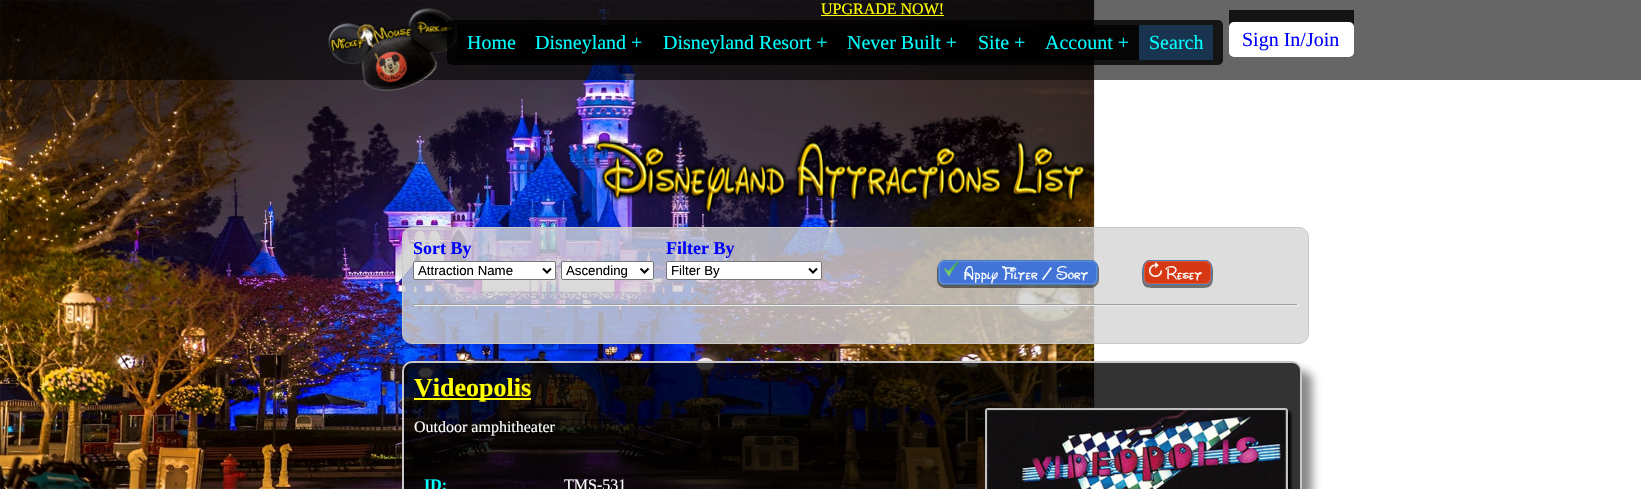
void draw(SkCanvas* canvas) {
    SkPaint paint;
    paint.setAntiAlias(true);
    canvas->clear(0xFFFFFFFF);
    canvas->drawImageRect(SkImages::DeferredFromEncodedData(SkData::MakeFromFileName("img1.png")), SkRect::MakeXYWH(0, 0, 1095, 489), SkSamplingOptions());
    canvas->drawImageRect(SkImages::DeferredFromEncodedData(SkData::MakeFromFileName("img2.png")), SkRect::MakeXYWH(1094, 0, 1, 408), SkSamplingOptions());
    paint.setColor(0x99000000);
    canvas->drawRect(SkRect::MakeXYWH(0, 0, 1641, 80), paint);
    canvas->drawImageRect(SkImages::DeferredFromEncodedData(SkData::MakeFromFileName("img3.png")), SkRect::MakeXYWH(328, 8, 131, 83), SkSamplingOptions());
    SkFont font1(fontMgr->matchFamilyStyle("Liberation Serif", SkFontStyle::Normal()), 16);
    font1.setSubpixel(true);
    paint.setColor(0xFFFFFF00);
    canvas->drawString("UPGRADE NOW!", 821, 14, font1, paint);
    canvas->drawRect(SkRect::MakeXYWH(821, 15, 123, 1), paint);
    paint.setColor(0xCC000000);
    canvas->drawRoundRect(SkRect::MakeXYWH(447, 20, 776, 45), 5, 5, paint);
    canvas->drawRect(SkRect::MakeXYWH(457, 25, 68, 35), paint);
    SkFont font2(fontMgr->matchFamilyStyle("Liberation Serif", SkFontStyle::Normal()), 20);
    font2.setSubpixel(true);
    paint.setColor(0xFF00FFFF);
    canvas->drawString("Home", 467, 49, font2, paint);
    paint.setColor(0xCC000000);
    canvas->drawRect(SkRect::MakeXYWH(525, 25, 128, 35), paint);
    paint.setColor(0xFF00FFFF);
    canvas->drawString("Disneyland +", 535, 49, font2, paint);
    paint.setColor(0xFF010101);
    canvas->drawRect(SkRect::MakeXYWH(653, 25, 315, 35), paint);
    paint.setColor(0xFF00FFFF);
    canvas->drawString("Disneyland Resort +", 663, 49, font2, paint);
    canvas->drawString("Never Built +", 847, 49, font2, paint);
    paint.setColor(0xFF010101);
    canvas->drawRect(SkRect::MakeXYWH(968, 28, 67, 32), paint);
    paint.setColor(0xFF00FFFF);
    canvas->drawString("Site +", 978, 49, font2, paint);
    paint.setColor(0xCC000000);
    canvas->drawRect(SkRect::MakeXYWH(1035, 25, 104, 35), paint);
    paint.setColor(0xFF00FFFF);
    canvas->drawString("Account +", 1045, 49, font2, paint);
    paint.setColor(0xFF19344F);
    canvas->drawRect(SkRect::MakeXYWH(1139, 25, 74, 35), paint);
    paint.setColor(0xFF00FFFF);
    canvas->drawString("Search", 1149, 49, font2, paint);
    paint.setColor(0xFF141414);
    canvas->drawRect(SkRect::MakeXYWH(1229, 10, 125, 17), paint);
    paint.setColor(0xFFFFFFFF);
    canvas->drawRoundRect(SkRect::MakeXYWH(1229, 22, 125, 35), 5, 5, paint);
    paint.setColor(0xFF0000FF);
    canvas->drawString("Sign In/Join", 1242, 46, font2, paint);
    canvas->drawImageRect(SkImages::DeferredFromEncodedData(SkData::MakeFromFileName("img4.png")), SkRect::MakeXYWH(593, 137, 494, 78), SkSamplingOptions());
    paint.setColor(0xCCD5D5D5);
    canvas->drawRoundRect(SkRect::MakeXYWH(402.5f, 227.5f, 906, 116), 9.5f, 9.5f, paint);
    paint.setStyle(SkPaint::kStroke_Style);
    paint.setStrokeWidth(1);
    paint.setColor(0xFFC8C8C8);
    canvas->drawRoundRect(SkRect::MakeXYWH(402.5f, 227.5f, 906, 116), 9.5f, 9.5f, paint);
    SkFont font3(fontMgr->matchFamilyStyle("Liberation Serif", SkFontStyle::Bold()), 18);
    font3.setSubpixel(true);
    paint.setStyle(SkPaint::kFill_Style);
    paint.setColor(0xFF0000FF);
    canvas->drawString("Sort By", 413, 254, font3, paint);
    paint.setColor(0xFFFFFFFF);
    canvas->drawRoundRect(SkRect::MakeXYWH(413.5f, 261.5f, 142, 18), 1.5f, 1.5f, paint);
    paint.setStyle(SkPaint::kStroke_Style);
    paint.setColor(0xFF767676);
    canvas->drawRoundRect(SkRect::MakeXYWH(413.5f, 261.5f, 142, 18), 1.5f, 1.5f, paint);
    paint.setStrokeWidth(2);
    paint.setColor(0xFF000000);
    canvas->drawPath(SkPathBuilder().moveTo(543, 268.5f).lineTo(547, 272.5f).lineTo(551, 268.5f).detach(), paint);
    SkFont font4(fontMgr->matchFamilyStyle("Liberation Sans", SkFontStyle::Normal()), 13.25f);
    font4.setSubpixel(true);
    paint.setStyle(SkPaint::kFill_Style);
    canvas->drawString("Attraction Name", 418, 275, font4, paint);
    paint.setColor(0xFFFFFFFF);
    canvas->drawRoundRect(SkRect::MakeXYWH(561.5f, 261.5f, 92, 18), 1.5f, 1.5f, paint);
    paint.setStyle(SkPaint::kStroke_Style);
    paint.setStrokeWidth(1);
    paint.setColor(0xFF767676);
    canvas->drawRoundRect(SkRect::MakeXYWH(561.5f, 261.5f, 92, 18), 1.5f, 1.5f, paint);
    paint.setStrokeWidth(2);
    paint.setColor(0xFF000000);
    canvas->drawPath(SkPathBuilder().moveTo(640.5f, 268.5f).lineTo(644.5f, 272.5f).lineTo(648.5f, 268.5f).detach(), paint);
    paint.setStyle(SkPaint::kFill_Style);
    canvas->drawString("Ascending", 566, 275, font4, paint);
    paint.setColor(0xFF0000FF);
    canvas->drawString("Filter By", 666, 254, font3, paint);
    paint.setColor(0xFFFFFFFF);
    canvas->drawRoundRect(SkRect::MakeXYWH(666.5f, 261.5f, 155, 18), 1.5f, 1.5f, paint);
    paint.setStyle(SkPaint::kStroke_Style);
    paint.setStrokeWidth(1);
    paint.setColor(0xFF767676);
    canvas->drawRoundRect(SkRect::MakeXYWH(666.5f, 261.5f, 155, 18), 1.5f, 1.5f, paint);
    paint.setStrokeWidth(2);
    paint.setColor(0xFF000000);
    canvas->drawPath(SkPathBuilder().moveTo(809, 268.5f).lineTo(813, 272.5f).lineTo(817, 268.5f).detach(), paint);
    paint.setStyle(SkPaint::kFill_Style);
    canvas->drawString("Filter By", 671, 275, font4, paint);
    paint.setColor(0x80000000);
    canvas->drawPath(SkPathBuilder().moveTo(939, 264).cubicTo(938, 266, 937, 267, 937, 269).lineTo(937, 280).cubicTo(937, 284, 941, 288, 945, 288).lineTo(1091, 288).cubicTo(1095, 288, 1099, 284, 1099, 280).lineTo(1099, 269).cubicTo(1099, 267, 1098, 266, 1097, 264).lineTo(1098, 267).lineTo(1098, 278).cubicTo(1098, 282, 1095, 285, 1091, 285).lineTo(945, 285).cubicTo(941, 285, 938, 282, 938, 278).lineTo(938, 267).close().detach(), paint);
    paint.setColor(0xFF4274D7);
    canvas->drawRoundRect(SkRect::MakeXYWH(938, 260, 160, 25), 7, 7, paint);
    paint.setStyle(SkPaint::kStroke_Style);
    paint.setColor(0x26FFFFFF);
    canvas->drawRoundRect(SkRect::MakeXYWH(939, 261, 158, 23), 6, 6, paint);
    paint.setStrokeWidth(1);
    paint.setColor(0xFF417FBD);
    canvas->drawRoundRect(SkRect::MakeXYWH(938.5f, 260.5f, 159, 24), 6.5f, 6.5f, paint);
    canvas->drawImageRect(SkImages::DeferredFromEncodedData(SkData::MakeFromFileName("img5.png")), SkRect::MakeXYWH(944, 262, 15, 15), SkSamplingOptions());
    SkFont font5(fontMgr->matchFamilyStyle("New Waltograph", SkFontStyle::Normal()), 18);
    font5.setSubpixel(true);
    paint.setStyle(SkPaint::kFill_Style);
    paint.setColor(0xFFFFFFFF);
    canvas->drawString("Apply Filter / Sort", 964, 279, font5, paint);
    paint.setColor(0xFF6F6F6F);
    canvas->drawPath(SkPathBuilder().moveTo(1144, 264).cubicTo(1141, 268, 1142, 272, 1142, 276).cubicTo(1142, 289, 1147, 288, 1159, 288).lineTo(1196, 288).cubicTo(1208, 288, 1213, 289, 1213, 276).cubicTo(1213, 272, 1214, 268, 1211, 264).cubicTo(1213, 267, 1212, 271, 1212, 274).cubicTo(1212, 286, 1207, 285, 1196, 285).lineTo(1159, 285).cubicTo(1148, 285, 1143, 286, 1143, 274).cubicTo(1143, 271, 1142, 267, 1144, 264).close().detach(), paint);
    paint.setColor(0xFFD73814);
    canvas->drawRoundRect(SkRect::MakeXYWH(1143, 260, 69, 25), 7, 7, paint);
    paint.setStyle(SkPaint::kStroke_Style);
    paint.setStrokeWidth(2);
    paint.setColor(0x26FFFFFF);
    canvas->drawRoundRect(SkRect::MakeXYWH(1144, 261, 67, 23), 6, 6, paint);
    paint.setStrokeWidth(1);
    paint.setColor(0xFF417FBD);
    canvas->drawRoundRect(SkRect::MakeXYWH(1143.5f, 260.5f, 68, 24), 6.5f, 6.5f, paint);
    canvas->drawImageRect(SkImages::DeferredFromEncodedData(SkData::MakeFromFileName("img6.png")), SkRect::MakeXYWH(1149, 262, 13, 15), SkSamplingOptions());
    paint.setStyle(SkPaint::kFill_Style);
    paint.setColor(0xFFFFFFFF);
    canvas->drawString("Reset", 1166, 279, font5, paint);
    paint.setColor(0xFF9F9F9F);
    canvas->drawRect(SkRect::MakeXYWH(413, 304, 885, 1), paint);
    paint.setColor(0xFFEEEEEE);
    canvas->drawRect(SkRect::MakeXYWH(1297, 304, 1, 2), paint);
    canvas->drawRect(SkRect::MakeXYWH(413, 305, 885, 1), paint);
    paint.setColor(0xFF9F9F9F);
    canvas->drawRect(SkRect::MakeXYWH(413, 304, 1, 2), paint);
    canvas->save();
    canvas->clipPath(SkPathBuilder(SkPathFillType::kEvenOdd).moveTo(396, 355).lineTo(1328, 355).lineTo(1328, 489).lineTo(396, 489).close().moveTo(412, 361).lineTo(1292, 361).cubicTo(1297.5f, 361, 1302, 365.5f, 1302, 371).lineTo(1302, 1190).cubicTo(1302, 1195.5f, 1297.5f, 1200, 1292, 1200).lineTo(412, 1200).cubicTo(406.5f, 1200, 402, 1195.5f, 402, 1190).lineTo(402, 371).cubicTo(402, 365.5f, 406.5f, 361, 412, 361).close().detach(), true);
    paint.setColor(0xFF888888);
    paint.setMaskFilter(SkMaskFilter::MakeBlur(kNormal_SkBlurStyle, 5));
    canvas->drawRoundRect(SkRect::MakeXYWH(412, 371, 900, 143), 10, 10, paint);
    paint.setMaskFilter(nullptr);
    canvas->restore();
    paint.setColor(0xCC000000);
    canvas->drawRoundRect(SkRect::MakeXYWH(403, 362, 898, 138), 9, 9, paint);
    paint.setStyle(SkPaint::kStroke_Style);
    paint.setStrokeWidth(2);
    paint.setColor(0xFFC8C8C8);
    canvas->drawRoundRect(SkRect::MakeXYWH(403, 362, 898, 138), 9, 9, paint);
    paint.setStyle(SkPaint::kFill_Style);
    paint.setColor(0xFFFFFF00);
    canvas->drawRect(SkRect::MakeXYWH(414, 398, 117, 2), paint);
    SkFont font6(fontMgr->matchFamilyStyle("Liberation Serif", SkFontStyle::Bold()), 26);
    font6.setSubpixel(true);
    canvas->drawString("Videopolis", 414, 396, font6, paint);
    paint.setColor(0xFFFFFFFF);
    canvas->drawString("Outdoor amphitheater", 414, 432, font1, paint);
    paint.setColor(0xFF000000);
    paint.setMaskFilter(SkMaskFilter::MakeBlur(kNormal_SkBlurStyle, 1.5f));
    canvas->drawRoundRect(SkRect::MakeXYWH(988, 411, 303, 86), 3, 3, paint);
    paint.setMaskFilter(nullptr);
    paint.setStyle(SkPaint::kStroke_Style);
    paint.setColor(0xFFC0C0C0);
    canvas->drawRoundRect(SkRect::MakeXYWH(986, 409, 301, 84), 2, 2, paint);
    canvas->drawImageRect(SkImages::DeferredFromEncodedData(SkData::MakeFromFileName("img7.png")), SkRect::MakeXYWH(987, 410, 299, 79), SkSamplingOptions());
    SkFont font7(fontMgr->matchFamilyStyle("Liberation Serif", SkFontStyle::Bold()), 16);
    font7.setSubpixel(true);
    paint.setStyle(SkPaint::kFill_Style);
    paint.setColor(0xFF00FFFF);
    canvas->drawString("ID:", 424, 490, font7, paint);
    paint.setColor(0xFFFFFFFF);
    canvas->drawString("TMS-531", 564, 490, font1, paint);
}
